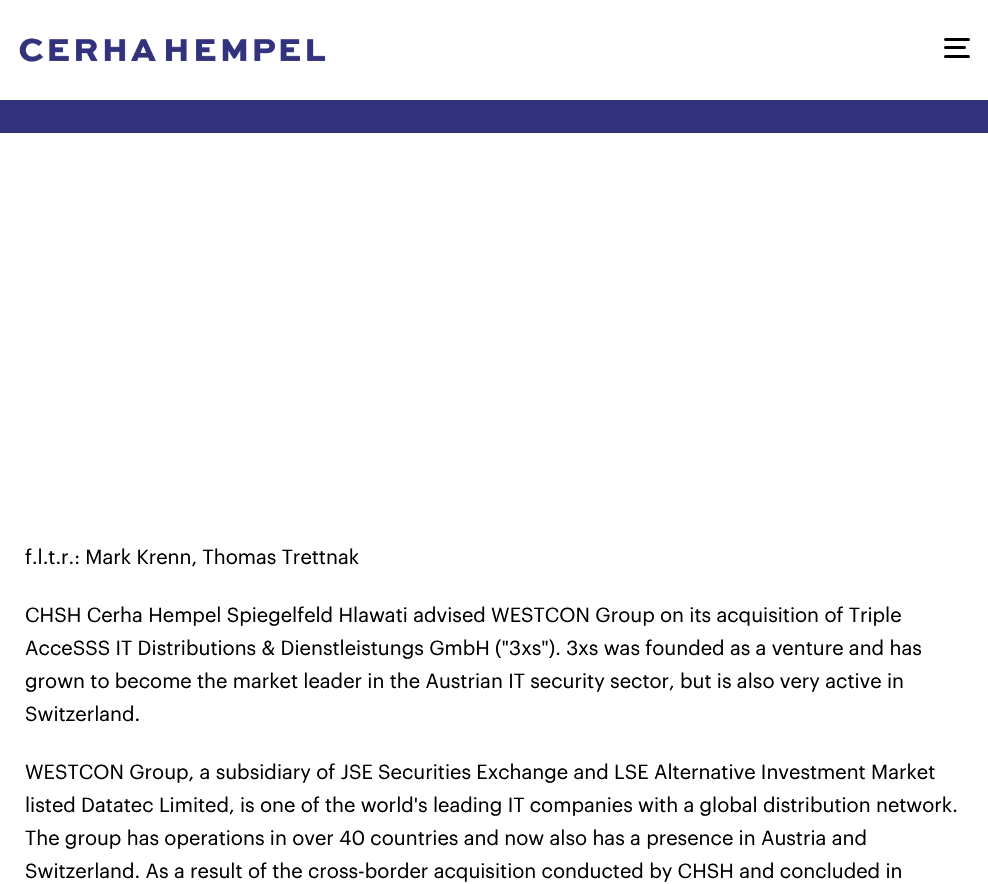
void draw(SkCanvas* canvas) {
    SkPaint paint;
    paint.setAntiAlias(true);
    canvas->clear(0xFFFFFFFF);
    canvas->drawImageRect(SkImages::DeferredFromEncodedData(SkData::MakeFromFileName("img1.png")), SkRect::MakeXYWH(19, 38, 307, 24), SkSamplingOptions());
    paint.setColor(0xFF000000);
    canvas->drawRoundRect(SkRect::MakeXYWH(944, 38, 26, 3), 1.5f, 1.5f, paint);
    canvas->drawRoundRect(SkRect::MakeXYWH(944, 46, 22, 3), 1.5f, 1.5f, paint);
    canvas->drawRoundRect(SkRect::MakeXYWH(944, 55, 26, 3), 1.5f, 1.5f, paint);
    paint.setColor(0xFF32327D);
    canvas->drawRect(SkRect::MakeXYWH(0, 100, 988, 33), paint);
    SkFont font1(fontMgr->matchFamilyStyle("Graphik", SkFontStyle::Normal()), 20);
    font1.setSubpixel(true);
    paint.setColor(0xFF000000);
    canvas->drawString("f.l.t.r.: Mark Krenn, Thomas Trettnak", 25, 564, font1, paint);
    canvas->drawString("CHSH Cerha Hempel Spiegelfeld Hlawati advised WESTCON Group on its acquisition of Triple", 25, 622, font1, paint);
    canvas->drawString("AcceSSS IT Distributions & Dienstleistungs GmbH (\"3xs\"). 3xs was founded as a venture and has", 25, 655, font1, paint);
    canvas->drawString("grown to become the market leader in the Austrian IT security sector, but is also very active in", 25, 688, font1, paint);
    canvas->drawString("Switzerland.", 25, 721, font1, paint);
    canvas->drawString("WESTCON Group, a subsidiary of JSE Securities Exchange and LSE Alternative Investment Market", 25, 779, font1, paint);
    canvas->drawString("listed Datatec Limited, is one of the world's leading IT companies with a global distribution network.", 25, 812, font1, paint);
    canvas->drawString("The group has operations in over 40 countries and now also has a presence in Austria and", 25, 845, font1, paint);
    canvas->drawString("Switzerland. As a result of the cross-border acquisition conducted by CHSH and concluded in", 25, 878, font1, paint);
}
